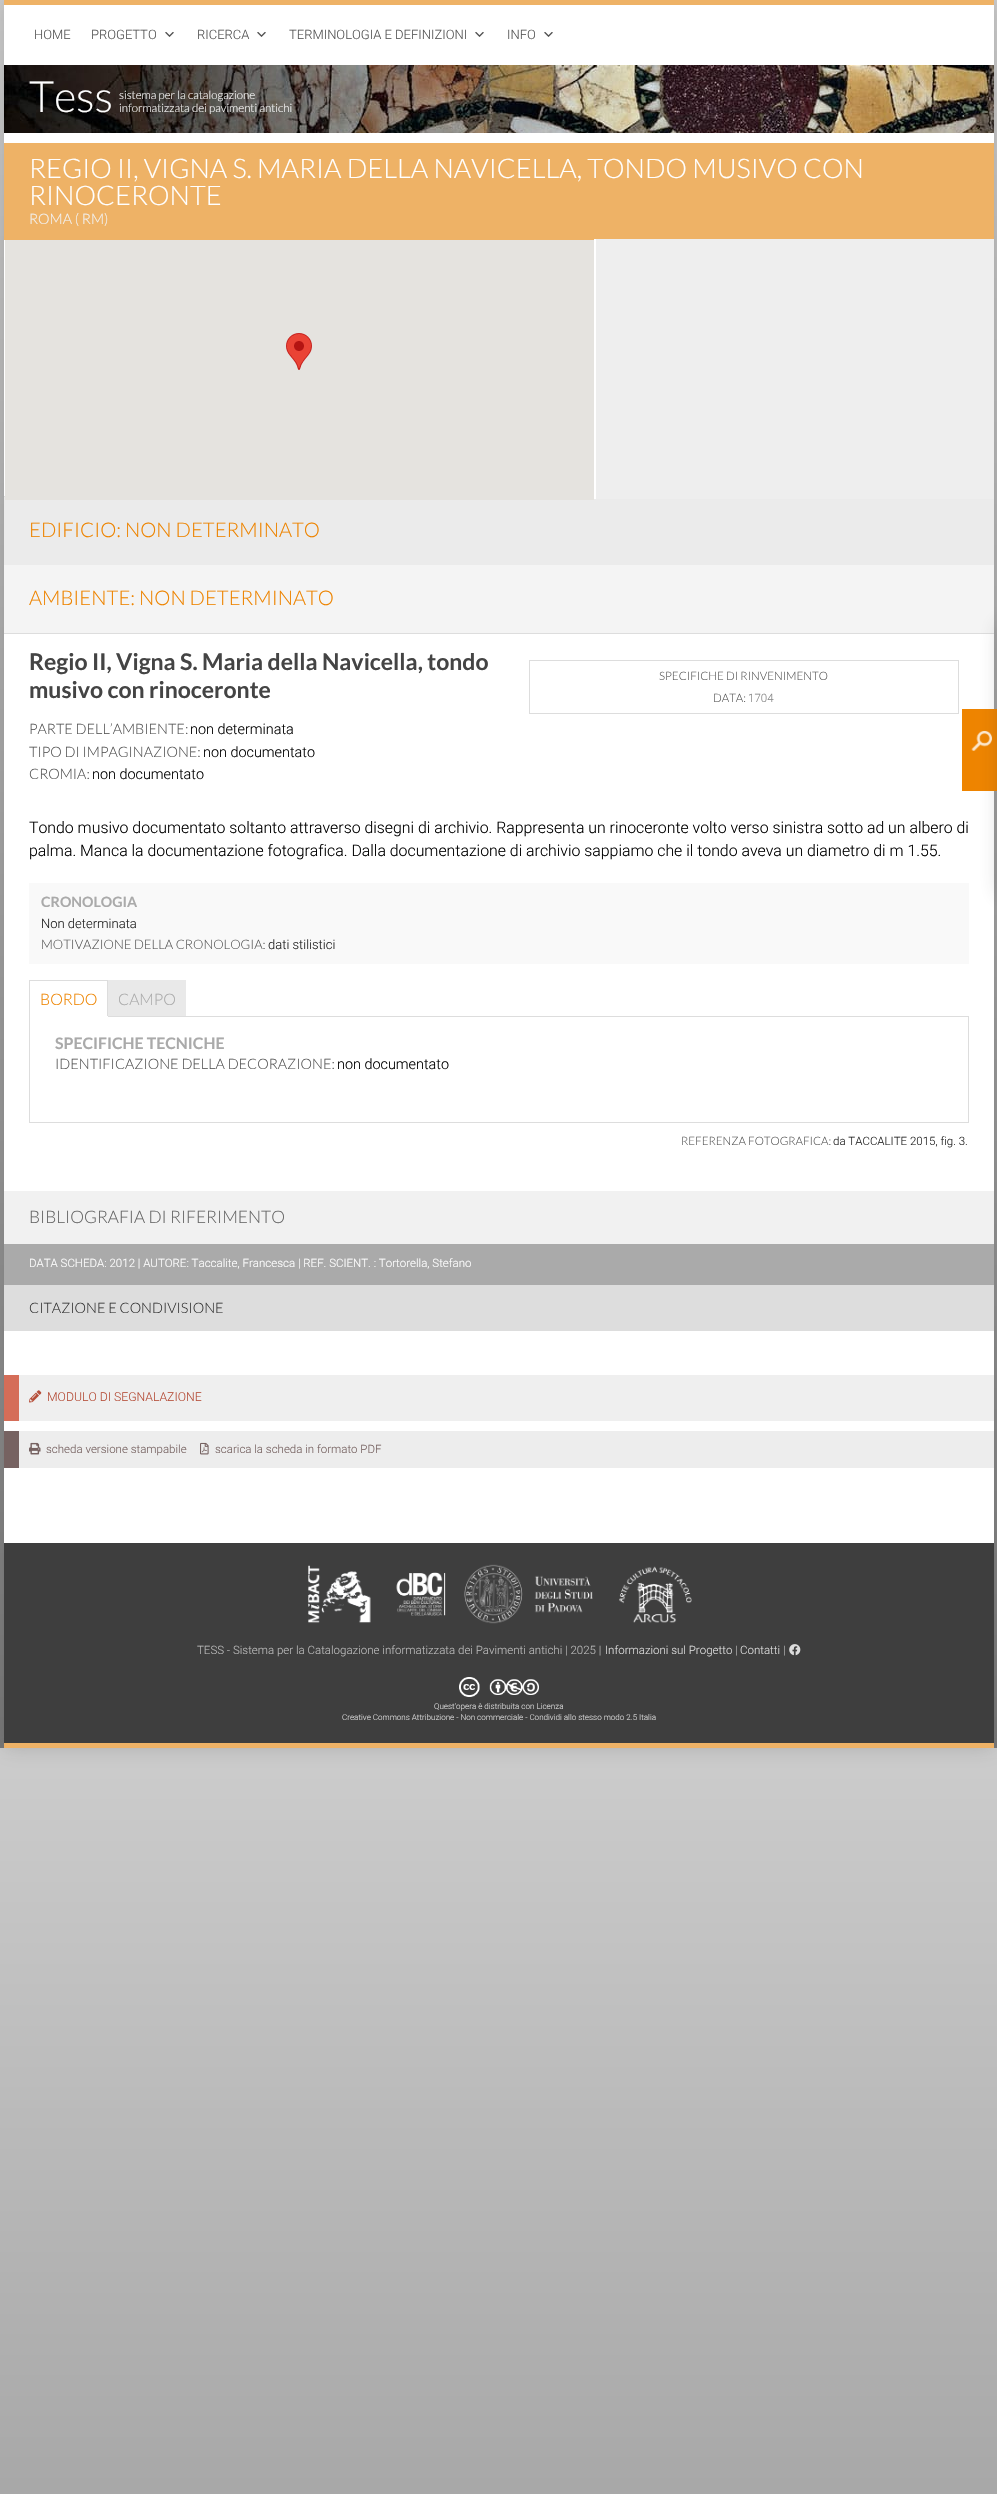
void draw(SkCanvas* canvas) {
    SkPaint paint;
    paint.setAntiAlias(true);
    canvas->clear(0xFFFFFFFF);
    {
        const SkColor colors[] = {0xFF777777, 0xFFCCCCCC};
        const float stops[] = {0, 1};
        const SkPoint ends[] = {{499, 1748}, {499, 0}};
        paint.setShader(SkGradientShader::MakeLinear(ends, colors, stops, 2, SkTileMode::kClamp));
        paint.setAlpha(255);
    }
    canvas->drawRect(SkRect::MakeXYWH(0, 0, 997, 1748), paint);
    {
        const SkColor colors[] = {0xFF777777, 0xFFCCCCCC};
        const float stops[] = {0, 1};
        const SkPoint ends[] = {{499, 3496}, {499, 1748}};
        paint.setShader(SkGradientShader::MakeLinear(ends, colors, stops, 2, SkTileMode::kClamp));
        paint.setAlpha(255);
    }
    canvas->drawRect(SkRect::MakeXYWH(0, 1748, 997, 746), paint);
    paint.setShader(nullptr);
    paint.setColor(0x33323232);
    paint.setMaskFilter(SkMaskFilter::MakeBlur(kNormal_SkBlurStyle, 10));
    canvas->drawRect(SkRect::MakeXYWH(4, 0, 990, 1748), paint);
    paint.setMaskFilter(nullptr);
    paint.setColor(0xFFFFFFFF);
    canvas->drawRect(SkRect::MakeXYWH(4, 5, 990, 1538), paint);
    paint.setColor(0xFFEEB266);
    canvas->drawRect(SkRect::MakeXYWH(4, 0, 990, 5), paint);
    SkFont font1(fontMgr->matchFamilyStyle("Roboto", SkFontStyle(300, SkFontStyle::kNormal_Width, SkFontStyle::kUpright_Slant)), 13);
    font1.setSubpixel(true);
    paint.setColor(0xFF555555);
    canvas->drawString("HOME", 34, 39, font1, paint);
    canvas->drawString("PROGETTO", 91, 39, font1, paint);
    canvas->drawImageRect(SkImages::DeferredFromEncodedData(SkData::MakeFromFileName("img1.png")), SkRect::MakeXYWH(165, 32, 9, 5), SkSamplingOptions());
    canvas->drawString("RICERCA", 197, 39, font1, paint);
    canvas->drawImageRect(SkImages::DeferredFromEncodedData(SkData::MakeFromFileName("img1.png")), SkRect::MakeXYWH(257, 32, 9, 5), SkSamplingOptions());
    canvas->drawString("TERMINOLOGIA E DEFINIZIONI", 289, 39, font1, paint);
    canvas->drawImageRect(SkImages::DeferredFromEncodedData(SkData::MakeFromFileName("img1.png")), SkRect::MakeXYWH(475, 32, 9, 5), SkSamplingOptions());
    canvas->drawString("INFO", 507, 39, font1, paint);
    canvas->drawImageRect(SkImages::DeferredFromEncodedData(SkData::MakeFromFileName("img1.png")), SkRect::MakeXYWH(544, 32, 9, 5), SkSamplingOptions());
    canvas->drawImageRect(SkImages::DeferredFromEncodedData(SkData::MakeFromFileName("img2.png")), SkRect::MakeXYWH(4, 65, 990, 68), SkSamplingOptions());
    SkFont font2(fontMgr->matchFamilyStyle("Lato", SkFontStyle(300, SkFontStyle::kNormal_Width, SkFontStyle::kUpright_Slant)), 43);
    font2.setSubpixel(true);
    paint.setColor(0xFFFFFFFF);
    canvas->drawString("Tess", 29, 112, font2, paint);
    SkFont font3(fontMgr->matchFamilyStyle("Lato", SkFontStyle(300, SkFontStyle::kNormal_Width, SkFontStyle::kUpright_Slant)), 11.5f);
    font3.setSubpixel(true);
    canvas->drawString("sistema per la catalogazione", 119, 99, font3, paint);
    canvas->drawString("informatizzata dei pavimenti antichi", 119, 112, font3, paint);
    paint.setColor(0xFFEEB266);
    canvas->drawRect(SkRect::MakeXYWH(4, 143, 990, 97), paint);
    SkFont font4(fontMgr->matchFamilyStyle("Lato", SkFontStyle(300, SkFontStyle::kNormal_Width, SkFontStyle::kUpright_Slant)), 27);
    font4.setSubpixel(true);
    paint.setColor(0xFFFFFFFF);
    canvas->drawString("REGIO II, VIGNA S. MARIA DELLA NAVICELLA, TONDO MUSIVO CON", 29, 178, font4, paint);
    canvas->drawString("RINOCERONTE", 29, 205, font4, paint);
    SkFont font5(fontMgr->matchFamilyStyle("Lato", SkFontStyle(300, SkFontStyle::kNormal_Width, SkFontStyle::kUpright_Slant)), 14.4f);
    font5.setSubpixel(true);
    paint.setColor(0xFFF2F2F2);
    canvas->drawString("ROMA ( RM)", 29, 224, font5, paint);
    paint.setColor(0xFFEBEBEB);
    canvas->drawRect(SkRect::MakeXYWH(4, 497, 990, 68), paint);
    paint.setColor(0xFFE5E3DF);
    canvas->drawRect(SkRect::MakeXYWH(5, 240, 589, 260), paint);
    canvas->drawImageRect(SkImages::DeferredFromEncodedData(SkData::MakeFromFileName("img3.png")), SkRect::MakeXYWH(286, 333, 26, 37), SkSamplingOptions());
    paint.setColor(0xFFEEEEEE);
    canvas->drawRect(SkRect::MakeXYWH(596, 239, 398, 260), paint);
    paint.setColor(0xFFFFFFFF);
    canvas->drawRect(SkRect::MakeXYWH(594, 239, 2, 260), paint);
    paint.setColor(0xFFDDDDDD);
    canvas->drawRect(SkRect::MakeXYWH(4, 496, 1, 1), paint);
    SkFont font6(fontMgr->matchFamilyStyle("Lato", SkFontStyle(300, SkFontStyle::kNormal_Width, SkFontStyle::kUpright_Slant)), 20.2f);
    font6.setSubpixel(true);
    paint.setColor(0xFFEE8400);
    canvas->drawString("EDIFICIO: NON DETERMINATO", 29, 537, font6, paint);
    paint.setColor(0xFFF4F4F4);
    canvas->drawRect(SkRect::MakeXYWH(4, 565, 990, 68), paint);
    paint.setColor(0xFFDDDDDD);
    canvas->drawRect(SkRect::MakeXYWH(4, 633, 990, 1), paint);
    paint.setColor(0xFFEE8400);
    canvas->drawString("AMBIENTE: NON DETERMINATO", 29, 605, font6, paint);
    SkFont font7(fontMgr->matchFamilyStyle("Lato", SkFontStyle::Bold()), 23);
    font7.setSubpixel(true);
    paint.setColor(0xFF444444);
    canvas->drawString("Regio II, Vigna S. Maria della Navicella, tondo", 29, 670, font7, paint);
    canvas->drawString("musivo con rinoceronte", 29, 698, font7, paint);
    paint.setStyle(SkPaint::kStroke_Style);
    paint.setStrokeWidth(1);
    paint.setColor(0xFFDDDDDD);
    canvas->drawRect(SkRect::MakeXYWH(529.5f, 660.5f, 429, 53), paint);
    paint.setStyle(SkPaint::kFill_Style);
    paint.setColor(0xFF555555);
    canvas->drawString("SPECIFICHE DI RINVENIMENTO", 659, 680, font3, paint);
    canvas->drawString("DATA:", 713, 702, font3, paint);
    SkFont font8(fontMgr->matchFamilyStyle("Roboto", SkFontStyle(300, SkFontStyle::kNormal_Width, SkFontStyle::kUpright_Slant)), 11.5f);
    font8.setSubpixel(true);
    paint.setColor(0xFF888888);
    canvas->drawString("1704", 748, 702, font8, paint);
    paint.setColor(0xFF555555);
    canvas->drawString("PARTE DELL’AMBIENTE:", 29, 734, font5, paint);
    SkFont font9(fontMgr->matchFamilyStyle("Roboto", SkFontStyle(300, SkFontStyle::kNormal_Width, SkFontStyle::kUpright_Slant)), 14.4f);
    font9.setSubpixel(true);
    paint.setColor(0xFF000000);
    canvas->drawString("non determinata", 190, 734, font9, paint);
    paint.setColor(0xFF555555);
    canvas->drawString("TIPO DI IMPAGINAZIONE:", 29, 757, font5, paint);
    paint.setColor(0xFF000000);
    canvas->drawString("non documentato", 203, 757, font9, paint);
    paint.setColor(0xFF555555);
    canvas->drawString("CROMIA:", 29, 779, font5, paint);
    paint.setColor(0xFF000000);
    canvas->drawString("non documentato", 92, 779, font9, paint);
    SkFont font10(fontMgr->matchFamilyStyle("Roboto", SkFontStyle(300, SkFontStyle::kNormal_Width, SkFontStyle::kUpright_Slant)), 15.85f);
    font10.setSubpixel(true);
    canvas->drawString("Tondo musivo documentato soltanto attraverso disegni di archivio. Rappresenta un rinoceronte volto verso sinistra sotto ad un albero di", 29, 833, font10, paint);
    canvas->drawString("palma. Manca la documentazione fotografica. Dalla documentazione di archivio sappiamo che il tondo aveva un diametro di m 1.55.", 29, 856, font10, paint);
    paint.setColor(0xFFF9F9F9);
    canvas->drawRect(SkRect::MakeXYWH(29, 883, 940, 81), paint);
    SkFont font11(fontMgr->matchFamilyStyle("Lato", SkFontStyle::Bold()), 14.25f);
    font11.setSubpixel(true);
    paint.setColor(0xFFAAAAAA);
    canvas->drawString("CRONOLOGIA", 41, 907, font11, paint);
    paint.setColor(0xFF222222);
    canvas->drawString("Non determinata", 41, 928, font1, paint);
    SkFont font12(fontMgr->matchFamilyStyle("Lato", SkFontStyle(300, SkFontStyle::kNormal_Width, SkFontStyle::kUpright_Slant)), 13);
    font12.setSubpixel(true);
    paint.setColor(0xFF555555);
    canvas->drawString("MOTIVAZIONE DELLA CRONOLOGIA:", 41, 949, font12, paint);
    paint.setColor(0xFF222222);
    canvas->drawString("dati stilistici", 268, 949, font1, paint);
    SkFont font13(fontMgr->matchFamilyStyle("Lato", SkFontStyle(300, SkFontStyle::kNormal_Width, SkFontStyle::kUpright_Slant)), 15.85f);
    font13.setSubpixel(true);
    paint.setColor(0xFFEE8400);
    canvas->drawString("BORDO", 40, 1005, font13, paint);
    paint.setColor(0xFFDDDDDD);
    canvas->drawRect(SkRect::MakeXYWH(29, 980, 79, 1), paint);
    paint.setStyle(SkPaint::kStroke_Style);
    canvas->drawRect(SkRect::MakeXYWH(29.5f, 1016.5f, 939, 106), paint);
    paint.setStyle(SkPaint::kFill_Style);
    canvas->drawRect(SkRect::MakeXYWH(107, 980, 1, 37), paint);
    paint.setColor(0xFFFFFFFF);
    canvas->drawRect(SkRect::MakeXYWH(29, 1016, 79, 1), paint);
    paint.setColor(0xFFDDDDDD);
    canvas->drawRect(SkRect::MakeXYWH(29, 980, 1, 37), paint);
    paint.setColor(0xFFE9E9E9);
    canvas->drawRect(SkRect::MakeXYWH(108, 980, 78, 36), paint);
    paint.setColor(0xFFAAAAAA);
    canvas->drawString("CAMPO", 118, 1005, font13, paint);
    SkFont font14(fontMgr->matchFamilyStyle("Lato", SkFontStyle::Bold()), 15.85f);
    font14.setSubpixel(true);
    canvas->drawString("SPECIFICHE TECNICHE", 55, 1049, font14, paint);
    paint.setColor(0xFF555555);
    canvas->drawString("IDENTIFICAZIONE DELLA DECORAZIONE:", 55, 1069, font5, paint);
    paint.setColor(0xFF000000);
    canvas->drawString("non documentato", 337, 1069, font9, paint);
    paint.setColor(0xFF555555);
    canvas->drawString("REFERENZA FOTOGRAFICA:", 681, 1145, font3, paint);
    paint.setColor(0xFF222222);
    canvas->drawString("da TACCALITE 2015, fig. 3.", 833, 1145, font8, paint);
    paint.setColor(0xFFF1F1F1);
    canvas->drawRect(SkRect::MakeXYWH(4, 1191, 990, 53), paint);
    SkFont font15(fontMgr->matchFamilyStyle("Lato", SkFontStyle(300, SkFontStyle::kNormal_Width, SkFontStyle::kUpright_Slant)), 17.25f);
    font15.setSubpixel(true);
    paint.setColor(0xFF666666);
    canvas->drawString("BIBLIOGRAFIA DI RIFERIMENTO", 29, 1223, font15, paint);
    paint.setColor(0xFFAAAAAA);
    canvas->drawRect(SkRect::MakeXYWH(4, 1244, 990, 41), paint);
    paint.setColor(0xFFFFFFFF);
    canvas->drawString("DATA SCHEDA: 2012 | AUTORE: Taccalite, Francesca | REF. SCIENT. : Tortorella, Stefano", 29, 1267, font8, paint);
    paint.setColor(0xFFDDDDDD);
    canvas->drawRect(SkRect::MakeXYWH(4, 1285, 990, 46), paint);
    paint.setColor(0xFF333333);
    canvas->drawString("CITAZIONE E CONDIVISIONE", 29, 1313, font5, paint);
    paint.setColor(0xFFEFEFEF);
    canvas->drawRect(SkRect::MakeXYWH(19, 1375, 975, 46), paint);
    paint.setColor(0xFFD56D58);
    canvas->drawRect(SkRect::MakeXYWH(4, 1375, 15, 46), paint);
    canvas->drawImageRect(SkImages::DeferredFromEncodedData(SkData::MakeFromFileName("img4.png")), SkRect::MakeXYWH(29, 1390, 13, 13), SkSamplingOptions());
    SkFont font16(fontMgr->matchFamilyStyle("Roboto", SkFontStyle(300, SkFontStyle::kNormal_Width, SkFontStyle::kUpright_Slant)), 12.25f);
    font16.setSubpixel(true);
    paint.setColor(0xFFB54D38);
    canvas->drawString("MODULO DI SEGNALAZIONE", 47, 1401, font16, paint);
    paint.setColor(0xFFEDEDED);
    canvas->drawRect(SkRect::MakeXYWH(19, 1431, 975, 37), paint);
    paint.setColor(0xFF766261);
    canvas->drawRect(SkRect::MakeXYWH(4, 1431, 15, 37), paint);
    canvas->drawImageRect(SkImages::DeferredFromEncodedData(SkData::MakeFromFileName("img5.png")), SkRect::MakeXYWH(29, 1442, 12, 13), SkSamplingOptions());
    canvas->drawString("scheda versione stampabile", 46, 1453, font8, paint);
    canvas->drawImageRect(SkImages::DeferredFromEncodedData(SkData::MakeFromFileName("img6.png")), SkRect::MakeXYWH(200, 1442, 9, 13), SkSamplingOptions());
    canvas->drawString("scarica la scheda in formato PDF", 215, 1453, font8, paint);
    paint.setColor(0xFF3E3E3E);
    canvas->drawRect(SkRect::MakeXYWH(4, 1543, 990, 200), paint);
    paint.setColor(0xFFEEB266);
    canvas->drawRect(SkRect::MakeXYWH(4, 1743, 990, 5), paint);
    paint.setColor(0xFFEE8400);
    canvas->drawRect(SkRect::MakeXYWH(962, 709, 35, 82), paint);
    paint.setColor(0x33323232);
    paint.setMaskFilter(SkMaskFilter::MakeBlur(kNormal_SkBlurStyle, 10));
    canvas->drawRect(SkRect::MakeXYWH(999, 624, 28, 270), paint);
    paint.setMaskFilter(nullptr);
    canvas->drawImageRect(SkImages::DeferredFromEncodedData(SkData::MakeFromFileName("img7.png")), SkRect::MakeXYWH(971, 730, 21, 21), SkSamplingOptions());
    canvas->drawImageRect(SkImages::DeferredFromEncodedData(SkData::MakeFromFileName("img8.png")), SkRect::MakeXYWH(308, 1564, 384, 60), SkSamplingOptions());
    paint.setColor(0xFFBBBBBB);
    canvas->drawString("TESS - Sistema per la Catalogazione informatizzata dei Pavimenti antichi | 2025 |", 197, 1654, font8, paint);
    paint.setColor(0xFFDDDDDD);
    canvas->drawString("Informazioni sul Progetto", 605, 1654, font8, paint);
    paint.setColor(0xFFBBBBBB);
    canvas->drawString("|", 735, 1654, font8, paint);
    paint.setColor(0xFFDDDDDD);
    canvas->drawString("Contatti", 740, 1654, font8, paint);
    paint.setColor(0xFFBBBBBB);
    canvas->drawString("|", 783, 1654, font8, paint);
    canvas->drawImageRect(SkImages::DeferredFromEncodedData(SkData::MakeFromFileName("img9.png")), SkRect::MakeXYWH(789, 1644, 12, 12), SkSamplingOptions());
    canvas->drawImageRect(SkImages::DeferredFromEncodedData(SkData::MakeFromFileName("img10.png")), SkRect::MakeXYWH(459, 1677, 80, 20), SkSamplingOptions());
    SkFont font17(fontMgr->matchFamilyStyle("Roboto", SkFontStyle(300, SkFontStyle::kNormal_Width, SkFontStyle::kUpright_Slant)), 8.05f);
    font17.setSubpixel(true);
    paint.setColor(0xFFDDDDDD);
    canvas->drawString("Quest'opera è distribuita con Licenza", 434, 1709, font17, paint);
    canvas->drawString("Creative Commons Attribuzione - Non commerciale - Condividi allo stesso modo 2.5 Italia", 342, 1720, font17, paint);
}
